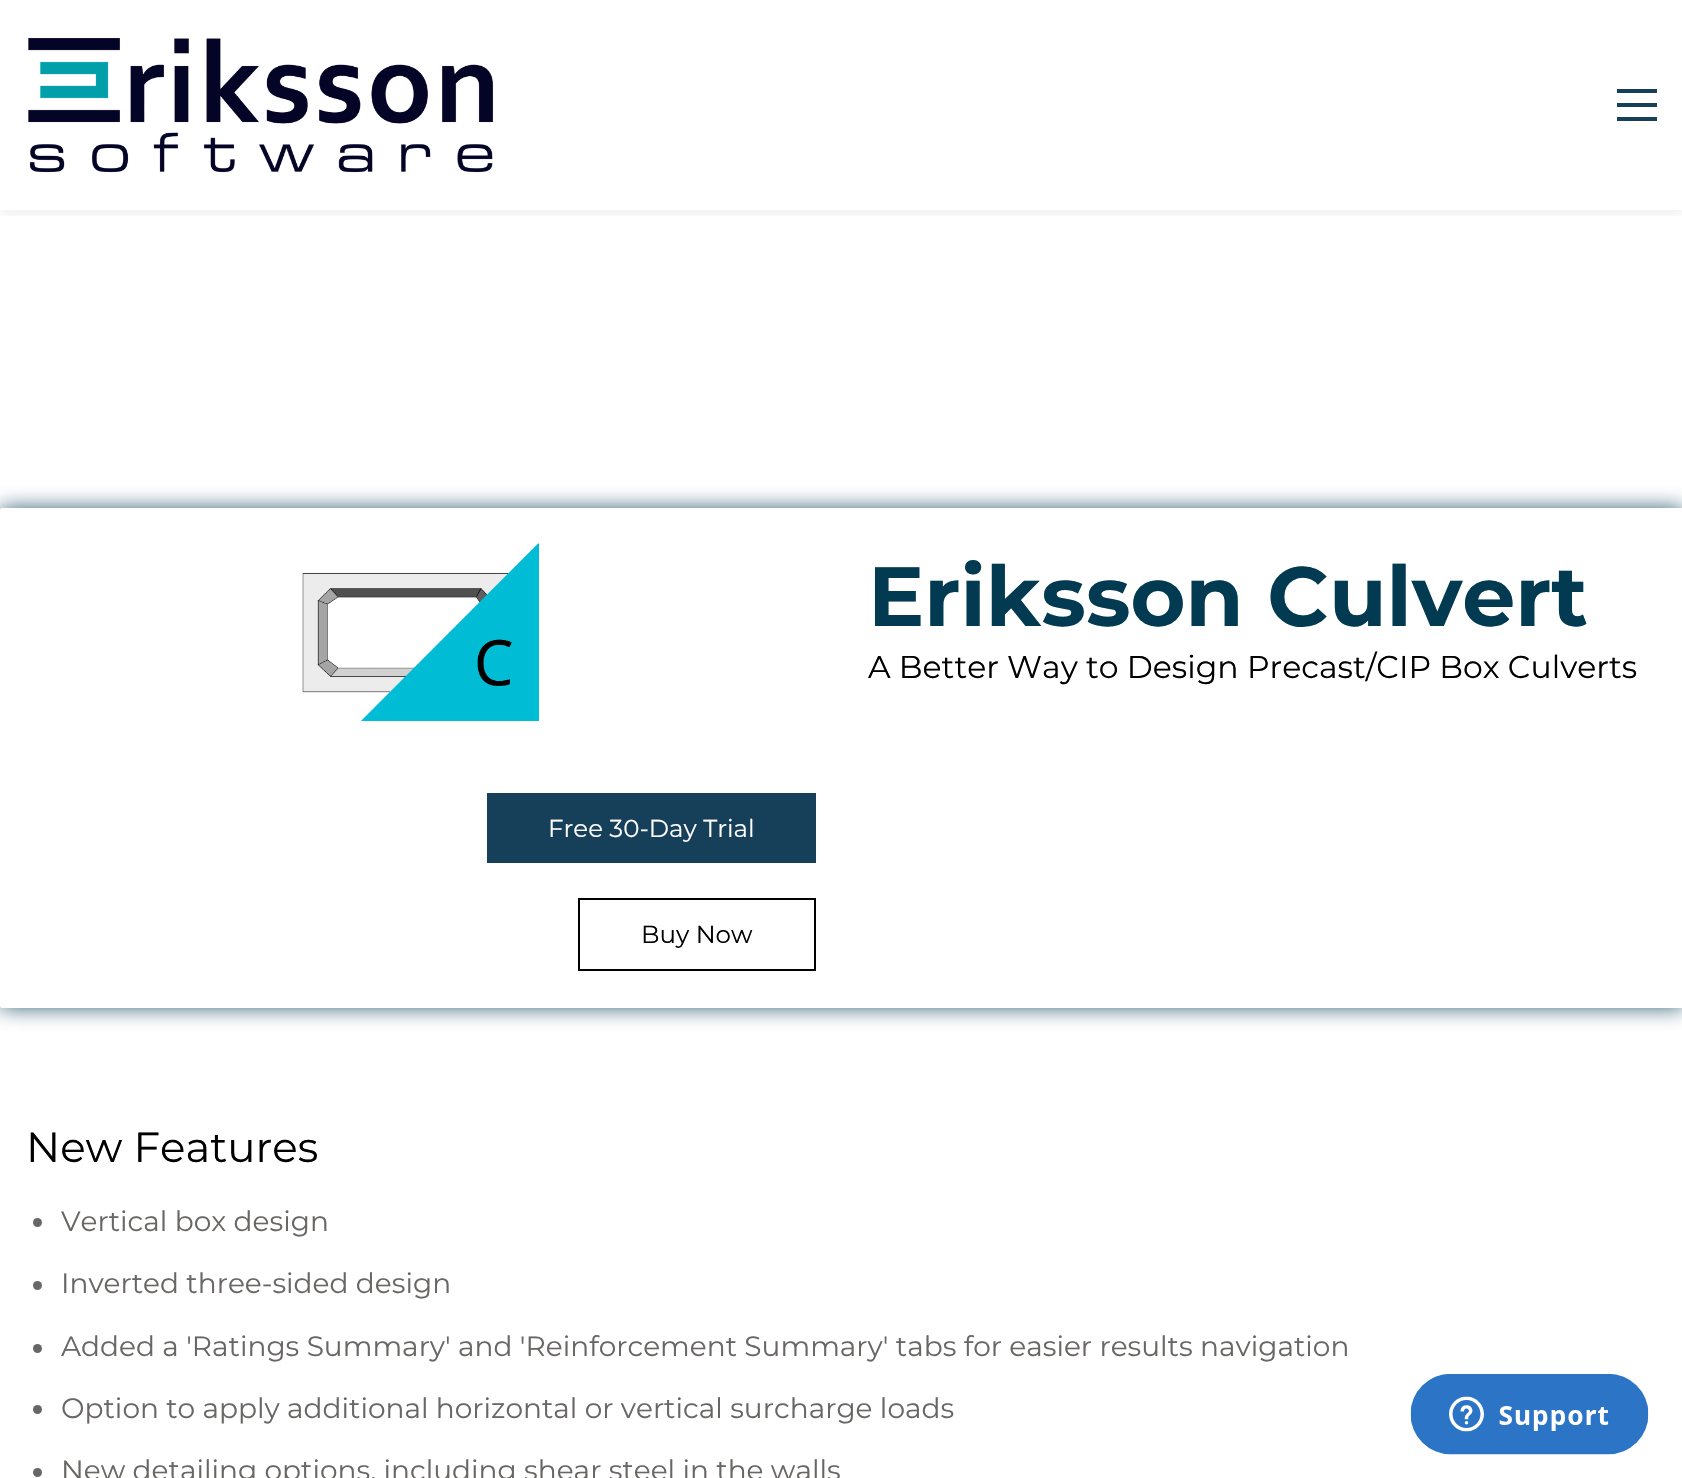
void draw(SkCanvas* canvas) {
    SkPaint paint;
    paint.setAntiAlias(true);
    canvas->clear(0xFFFFFFFF);
    canvas->save();
    canvas->clipRect(SkRect::MakeXYWH(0, 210, 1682, 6));
    paint.setColor(0x0D000000);
    paint.setMaskFilter(SkMaskFilter::MakeBlur(kNormal_SkBlurStyle, 4.5f));
    canvas->drawRect(SkRect::MakeXYWH(0, 5, 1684, 210), paint);
    paint.setMaskFilter(nullptr);
    canvas->restore();
    canvas->drawImageRect(SkImages::DeferredFromEncodedData(SkData::MakeFromFileName("img1.png")), SkRect::MakeXYWH(28, 37, 466, 136), SkSamplingOptions());
    paint.setColor(0xFF163F5A);
    canvas->drawRect(SkRect::MakeXYWH(1617, 89, 40, 4), paint);
    canvas->drawRect(SkRect::MakeXYWH(1617, 103, 40, 4), paint);
    canvas->drawRect(SkRect::MakeXYWH(1617, 117, 40, 4), paint);
    canvas->save();
    canvas->clipPath(SkPathBuilder(SkPathFillType::kEvenOdd).moveTo(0, 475).lineTo(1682, 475).lineTo(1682, 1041).lineTo(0, 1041).close().moveTo(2, 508).lineTo(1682, 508).cubicTo(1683, 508, 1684, 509, 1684, 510).lineTo(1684, 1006).cubicTo(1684, 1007, 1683, 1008, 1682, 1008).lineTo(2, 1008).cubicTo(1, 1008, 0, 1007, 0, 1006).lineTo(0, 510).cubicTo(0, 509, 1, 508, 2, 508).close().detach(), true);
    paint.setColor(0xCC013A51);
    paint.setMaskFilter(SkMaskFilter::MakeBlur(kNormal_SkBlurStyle, 10.5f));
    canvas->drawRoundRect(SkRect::MakeXYWH(0, 508, 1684, 500), 2, 2, paint);
    paint.setMaskFilter(nullptr);
    canvas->restore();
    canvas->drawImageRect(SkImages::DeferredFromEncodedData(SkData::MakeFromFileName("img2.png")), SkRect::MakeXYWH(302, 543, 237, 178), SkSamplingOptions());
    SkFont font1(fontMgr->matchFamilyStyle("Montserrat", SkFontStyle::Bold()), 84);
    font1.setSubpixel(true);
    paint.setColor(0xFF013A51);
    canvas->drawString("Eriksson Culvert", 868, 626, font1, paint);
    SkFont font2(fontMgr->matchFamilyStyle("Montserrat", SkFontStyle::Normal()), 31.5f);
    font2.setSubpixel(true);
    paint.setColor(0xFF000000);
    canvas->drawString("A Better Way to Design Precast/CIP Box Culverts", 868, 678, font2, paint);
    paint.setColor(0xFF163F5A);
    canvas->drawRect(SkRect::MakeXYWH(487, 793, 329, 70), paint);
    SkFont font3(fontMgr->matchFamilyStyle("Montserrat", SkFontStyle::Normal()), 24.5f);
    font3.setSubpixel(true);
    paint.setColor(0xFFFFFFFF);
    canvas->drawString("Free 30-Day Trial", 548, 837, font3, paint);
    paint.setStyle(SkPaint::kStroke_Style);
    paint.setStrokeWidth(2);
    paint.setColor(0xFF000000);
    canvas->drawRect(SkRect::MakeXYWH(579, 899, 236, 71), paint);
    paint.setStyle(SkPaint::kFill_Style);
    canvas->drawString("Buy Now", 641, 943, font3, paint);
    SkFont font4(fontMgr->matchFamilyStyle("Montserrat", SkFontStyle::Normal()), 42);
    font4.setSubpixel(true);
    canvas->drawString("New Features", 26, 1162, font4, paint);
    paint.setColor(0xFF696765);
    canvas->drawCircle(37.5f, 1222.5f, 4.5f, paint);
    SkFont font5(fontMgr->matchFamilyStyle("Montserrat", SkFontStyle::Normal()), 28);
    font5.setSubpixel(true);
    canvas->drawString("Vertical box design", 61, 1231, font5, paint);
    canvas->drawCircle(37.5f, 1285.5f, 4.5f, paint);
    canvas->drawString("Inverted three-sided design", 61, 1293, font5, paint);
    canvas->drawCircle(37.5f, 1348.5f, 4.5f, paint);
    canvas->drawString("Added a 'Ratings Summary' and 'Reinforcement Summary' tabs for easier results navigation", 61, 1356, font5, paint);
    canvas->drawCircle(37.5f, 1409.5f, 4.5f, paint);
    canvas->drawString("Option to apply additional horizontal or vertical surcharge loads", 61, 1418, font5, paint);
    canvas->drawCircle(37.5f, 1472.5f, 4.5f, paint);
    canvas->drawString("New detailing options, including shear steel in the walls", 61, 1480, font5, paint);
    canvas->drawImageRect(SkImages::DeferredFromEncodedData(SkData::MakeFromFileName("img3.png")), SkRect::MakeXYWH(1410, 1374, 239, 81), SkSamplingOptions());
}
